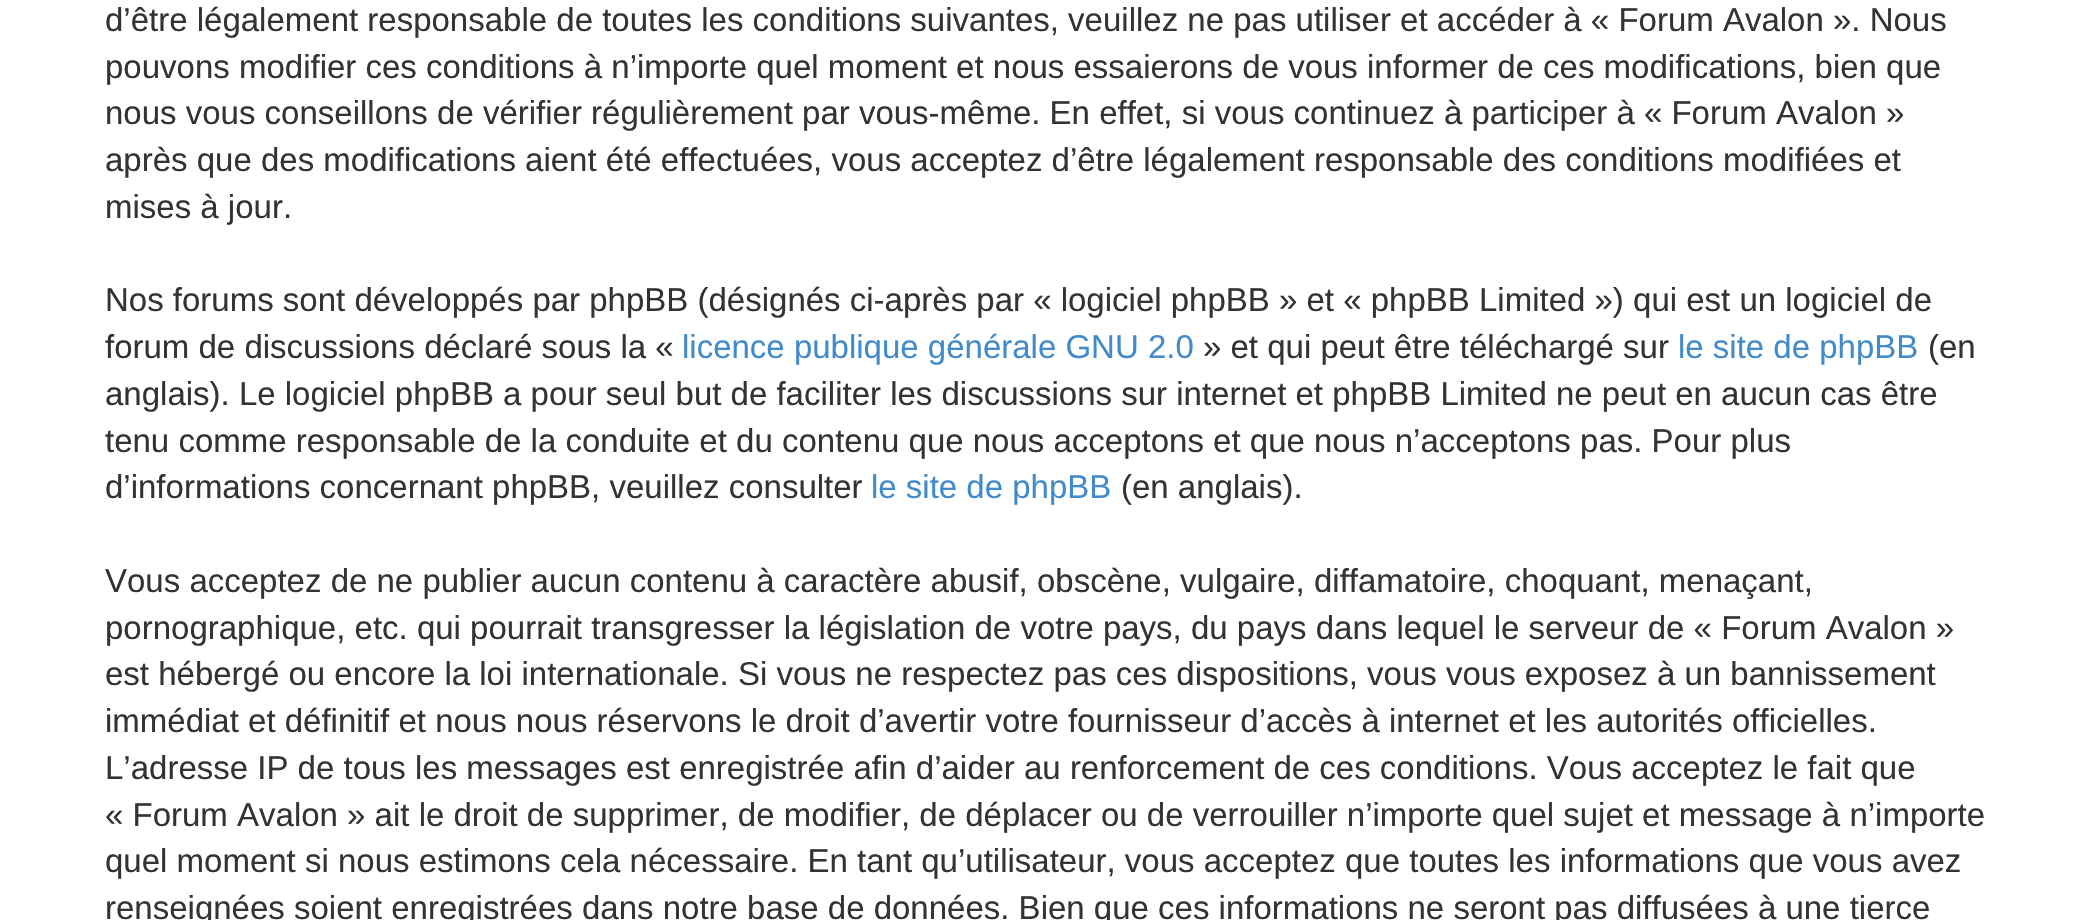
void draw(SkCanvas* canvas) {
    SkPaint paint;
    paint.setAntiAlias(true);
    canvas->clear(0xFFFFFFFF);
    SkFont font1(fontMgr->matchFamilyStyle("Liberation Sans", SkFontStyle::Normal()), 33);
    font1.setSubpixel(true);
    paint.setColor(0xFF333333);
    canvas->drawString("d’être légalement responsable de toutes les conditions suivantes, veuillez ne pas utiliser et accéder à « Forum Avalon ». Nous", 105, 31, font1, paint);
    canvas->drawString("pouvons modifier ces conditions à n’importe quel moment et nous essaierons de vous informer de ces modifications, bien que", 105, 78, font1, paint);
    canvas->drawString("nous vous conseillons de vérifier régulièrement par vous-même. En effet, si vous continuez à participer à « Forum Avalon »", 105, 124, font1, paint);
    canvas->drawString("après que des modifications aient été effectuées, vous acceptez d’être légalement responsable des conditions modifiées et", 105, 171, font1, paint);
    canvas->drawString("mises à jour.", 105, 218, font1, paint);
    canvas->drawString("Nos forums sont développés par phpBB (désignés ci-après par « logiciel phpBB » et « phpBB Limited ») qui est un logiciel de", 105, 311, font1, paint);
    canvas->drawString("forum de discussions déclaré sous la «", 105, 358, font1, paint);
    paint.setColor(0xFF428BCA);
    canvas->drawString("licence publique générale GNU 2.0", 682, 358, font1, paint);
    paint.setColor(0xFF333333);
    canvas->drawString("» et qui peut être téléchargé sur", 1203, 358, font1, paint);
    paint.setColor(0xFF428BCA);
    canvas->drawString("le site de phpBB", 1678, 358, font1, paint);
    paint.setColor(0xFF333333);
    canvas->drawString("(en", 1928, 358, font1, paint);
    canvas->drawString("anglais). Le logiciel phpBB a pour seul but de faciliter les discussions sur internet et phpBB Limited ne peut en aucun cas être", 105, 405, font1, paint);
    canvas->drawString("tenu comme responsable de la conduite et du contenu que nous acceptons et que nous n’acceptons pas. Pour plus", 105, 452, font1, paint);
    canvas->drawString("d’informations concernant phpBB, veuillez consulter", 105, 498, font1, paint);
    paint.setColor(0xFF428BCA);
    canvas->drawString("le site de phpBB", 871, 498, font1, paint);
    paint.setColor(0xFF333333);
    canvas->drawString("(en anglais).", 1121, 498, font1, paint);
    canvas->drawString("Vous acceptez de ne publier aucun contenu à caractère abusif, obscène, vulgaire, diffamatoire, choquant, menaçant,", 105, 592, font1, paint);
    canvas->drawString("pornographique, etc. qui pourrait transgresser la législation de votre pays, du pays dans lequel le serveur de « Forum Avalon »", 105, 639, font1, paint);
    canvas->drawString("est hébergé ou encore la loi internationale. Si vous ne respectez pas ces dispositions, vous vous exposez à un bannissement", 105, 685, font1, paint);
    canvas->drawString("immédiat et définitif et nous nous réservons le droit d’avertir votre fournisseur d’accès à internet et les autorités officielles.", 105, 732, font1, paint);
    canvas->drawString("L’adresse IP de tous les messages est enregistrée afin d’aider au renforcement de ces conditions. Vous acceptez le fait que", 105, 779, font1, paint);
    canvas->drawString("« Forum Avalon » ait le droit de supprimer, de modifier, de déplacer ou de verrouiller n’importe quel sujet et message à n’importe", 105, 826, font1, paint);
    canvas->drawString("quel moment si nous estimons cela nécessaire. En tant qu’utilisateur, vous acceptez que toutes les informations que vous avez", 105, 872, font1, paint);
    canvas->drawString("renseignées soient enregistrées dans notre base de données. Bien que ces informations ne seront pas diffusées à une tierce", 105, 919, font1, paint);
}
